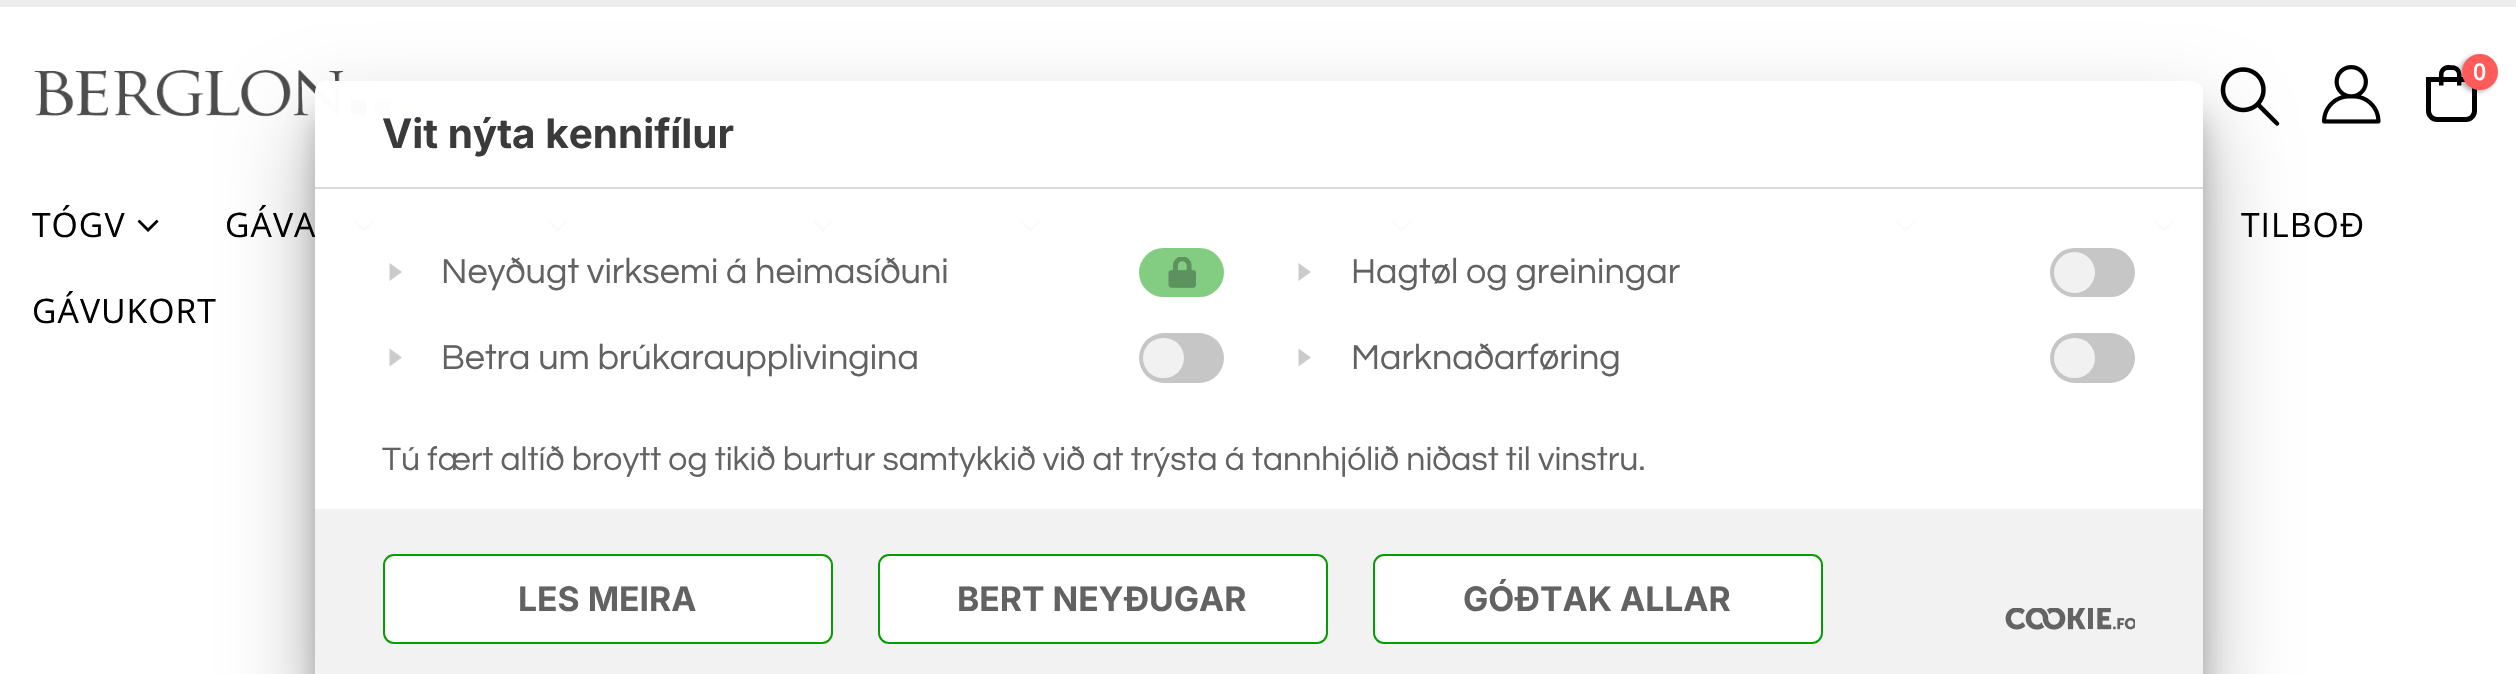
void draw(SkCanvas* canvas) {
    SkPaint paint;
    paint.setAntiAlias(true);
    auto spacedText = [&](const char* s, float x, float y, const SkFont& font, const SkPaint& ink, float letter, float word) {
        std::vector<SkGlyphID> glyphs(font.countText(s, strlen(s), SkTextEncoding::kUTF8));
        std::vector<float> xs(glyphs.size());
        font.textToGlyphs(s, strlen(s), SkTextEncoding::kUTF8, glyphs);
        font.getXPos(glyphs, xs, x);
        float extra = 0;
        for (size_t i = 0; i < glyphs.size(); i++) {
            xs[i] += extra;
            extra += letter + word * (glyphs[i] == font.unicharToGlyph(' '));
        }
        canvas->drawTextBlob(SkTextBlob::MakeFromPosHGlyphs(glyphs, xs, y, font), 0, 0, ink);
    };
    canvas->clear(0xFFFFFFFF);
    paint.setColor(0xFFEDEDED);
    canvas->drawRect(SkRect::MakeXYWH(0, 0, 2516, 7), paint);
    canvas->drawImageRect(SkImages::DeferredFromEncodedData(SkData::MakeFromFileName("img1.png")), SkRect::MakeXYWH(34, 70, 382, 47), SkSamplingOptions());
    canvas->drawImageRect(SkImages::DeferredFromEncodedData(SkData::MakeFromFileName("img2.png")), SkRect::MakeXYWH(2220, 67, 60, 59), SkSamplingOptions());
    canvas->drawImageRect(SkImages::DeferredFromEncodedData(SkData::MakeFromFileName("img3.png")), SkRect::MakeXYWH(2322, 65, 59, 59), SkSamplingOptions());
    paint.setStyle(SkPaint::kStroke_Style);
    paint.setStrokeWidth(5);
    paint.setColor(0xFF000000);
    canvas->drawPath(SkPathBuilder().moveTo(2428.5f, 79.5f).lineTo(2474.5f, 79.5f).lineTo(2474.5f, 111).cubicTo(2474.5f, 115.5f, 2470.5f, 119.5f, 2466, 119.5f).lineTo(2437, 119.5f).cubicTo(2432.5f, 119.5f, 2428.5f, 115.5f, 2428.5f, 111).close().detach(), paint);
    paint.setStyle(SkPaint::kFill_Style);
    canvas->drawPath(SkPathBuilder(SkPathFillType::kEvenOdd).moveTo(2448, 65).lineTo(2454.5f, 65.5f).cubicTo(2463.5f, 67.5f, 2461.5f, 78.5f, 2461.5f, 85.5f).lineTo(2439, 85.5f).lineTo(2439, 74).cubicTo(2439, 69.5f, 2443, 65, 2448, 65).close().moveTo(2448, 70).lineTo(2452.5f, 70).cubicTo(2455, 70, 2457, 72, 2457, 74).lineTo(2457, 85.5f).lineTo(2443.5f, 85.5f).lineTo(2443.5f, 74).cubicTo(2443.5f, 72, 2445.5f, 70, 2448, 70).close().detach(), paint);
    paint.setColor(0x4D000000);
    paint.setMaskFilter(SkMaskFilter::MakeBlur(kNormal_SkBlurStyle, 2));
    canvas->drawRoundRect(SkRect::MakeXYWH(2459, 56, 36, 36), 18, 18, paint);
    paint.setMaskFilter(nullptr);
    paint.setColor(0xFFFF5B5B);
    canvas->drawCircle(2480, 72, 18, paint);
    SkFont font1(fontMgr->matchFamilyStyle("Open Sans", SkFontStyle(600, SkFontStyle::kNormal_Width, SkFontStyle::kUpright_Slant)), 23);
    font1.setSubpixel(true);
    paint.setColor(0xFFFFFFFF);
    canvas->drawString("0", 2473, 80, font1, paint);
    SkFont font2(fontMgr->matchFamilyStyle("Open Sans", SkFontStyle::Normal()), 33.75f);
    font2.setSubpixel(true);
    paint.setColor(0xFF000000);
    spacedText("TÓGV", 32, 237, font2, paint, 1, 0);
    canvas->drawImageRect(SkImages::DeferredFromEncodedData(SkData::MakeFromFileName("img4.png")), SkRect::MakeXYWH(137, 219, 22, 13), SkSamplingOptions());
    spacedText("GÁVA", 225, 237, font2, paint, 1, 0);
    canvas->drawImageRect(SkImages::DeferredFromEncodedData(SkData::MakeFromFileName("img4.png")), SkRect::MakeXYWH(353, 219, 22, 13), SkSamplingOptions());
    canvas->drawImageRect(SkImages::DeferredFromEncodedData(SkData::MakeFromFileName("img5.png")), SkRect::MakeXYWH(547, 219, 21, 13), SkSamplingOptions());
    canvas->drawImageRect(SkImages::DeferredFromEncodedData(SkData::MakeFromFileName("img4.png")), SkRect::MakeXYWH(812, 219, 22, 13), SkSamplingOptions());
    canvas->drawImageRect(SkImages::DeferredFromEncodedData(SkData::MakeFromFileName("img4.png")), SkRect::MakeXYWH(1019, 219, 22, 13), SkSamplingOptions());
    canvas->drawImageRect(SkImages::DeferredFromEncodedData(SkData::MakeFromFileName("img6.png")), SkRect::MakeXYWH(1391, 219, 21, 13), SkSamplingOptions());
    canvas->drawImageRect(SkImages::DeferredFromEncodedData(SkData::MakeFromFileName("img6.png")), SkRect::MakeXYWH(1895, 219, 21, 13), SkSamplingOptions());
    canvas->drawImageRect(SkImages::DeferredFromEncodedData(SkData::MakeFromFileName("img4.png")), SkRect::MakeXYWH(2153, 219, 22, 13), SkSamplingOptions());
    spacedText("TILBOÐ", 2241, 237, font2, paint, 1, 0);
    spacedText("GÁVUKORT", 32, 323, font2, paint, 1, 0);
    canvas->save();
    canvas->clipPath(SkPathBuilder(SkPathFillType::kEvenOdd).moveTo(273, 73).lineTo(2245, 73).lineTo(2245, 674).lineTo(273, 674).close().moveTo(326, 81).lineTo(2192, 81).cubicTo(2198, 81, 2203, 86, 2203, 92).lineTo(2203, 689).lineTo(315, 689).lineTo(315, 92).cubicTo(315, 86, 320, 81, 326, 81).close().detach(), true);
    paint.setColor(0x38000000);
    paint.setMaskFilter(SkMaskFilter::MakeBlur(kNormal_SkBlurStyle, 13.5f));
    canvas->drawRoundRect(SkRect::MakeXYWH(315, 115, 1888, 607), 11, 11, paint);
    paint.setMaskFilter(nullptr);
    canvas->restore();
    canvas->save();
    canvas->clipPath(SkPathBuilder(SkPathFillType::kEvenOdd).moveTo(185, 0).lineTo(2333, 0).lineTo(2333, 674).lineTo(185, 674).close().moveTo(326, 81).lineTo(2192, 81).cubicTo(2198, 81, 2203, 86, 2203, 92).lineTo(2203, 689).lineTo(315, 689).lineTo(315, 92).cubicTo(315, 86, 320, 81, 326, 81).close().detach(), true);
    paint.setColor(0x4A000000);
    paint.setMaskFilter(SkMaskFilter::MakeBlur(kNormal_SkBlurStyle, 43));
    canvas->drawRoundRect(SkRect::MakeXYWH(315, 124, 1888, 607), 11, 11, paint);
    paint.setMaskFilter(nullptr);
    canvas->restore();
    paint.setColor(0xFAFFFFFF);
    canvas->drawPath(SkPathBuilder().moveTo(326, 81).lineTo(2192, 81).cubicTo(2198, 81, 2203, 86, 2203, 92).lineTo(2203, 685).lineTo(315, 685).lineTo(315, 92).cubicTo(315, 86, 320, 81, 326, 81).close().detach(), paint);
    paint.setColor(0xFFDADADA);
    canvas->drawRect(SkRect::MakeXYWH(315, 187, 1888, 2), paint);
    SkFont font3(fontMgr->matchFamilyStyle("Inter", SkFontStyle::Bold()), 40.5f);
    font3.setSubpixel(true);
    paint.setColor(0xFF3A3A3A);
    canvas->drawString("Vit nýta kennifílur", 382, 148, font3, paint);
    paint.setColor(0xFFCBCBCB);
    canvas->drawPath(SkPathBuilder().moveTo(389.5f, 263).lineTo(402, 272).lineTo(389.5f, 281).close().detach(), paint);
    SkFont font4(fontMgr->matchFamilyStyle("Questrial", SkFontStyle::Normal()), 36);
    font4.setSubpixel(true);
    paint.setColor(0xFF626262);
    canvas->drawString("Neyðugt virksemi á heimasíðuni", 441, 283, font4, paint);
    paint.setColor(0xFF83CD83);
    canvas->drawRoundRect(SkRect::MakeXYWH(1139, 248, 85, 49), 24.5f, 24.5f, paint);
    canvas->drawImageRect(SkImages::DeferredFromEncodedData(SkData::MakeFromFileName("img7.png")), SkRect::MakeXYWH(1168, 257, 28, 31), SkSamplingOptions());
    paint.setColor(0xFFCBCBCB);
    canvas->drawPath(SkPathBuilder().moveTo(389.5f, 348.5f).lineTo(402, 357.5f).lineTo(389.5f, 366.5f).close().detach(), paint);
    paint.setColor(0xFF626262);
    canvas->drawString("Betra um brúkaraupplivingina", 441, 369, font4, paint);
    paint.setColor(0xFFC7C6C6);
    canvas->drawRoundRect(SkRect::MakeXYWH(1139, 333, 85, 50), 25, 25, paint);
    paint.setColor(0xFFF1F1F1);
    canvas->drawRoundRect(SkRect::MakeXYWH(1143, 338, 41, 40), 20, 20, paint);
    paint.setColor(0xFFCBCBCB);
    canvas->drawPath(SkPathBuilder().moveTo(1298.5f, 263).lineTo(1311, 272).lineTo(1298.5f, 281).close().detach(), paint);
    paint.setColor(0xFF626262);
    canvas->drawString("Hagtøl og greiningar", 1351, 283, font4, paint);
    paint.setColor(0xFFC7C6C6);
    canvas->drawRoundRect(SkRect::MakeXYWH(2050, 248, 85, 49), 24.5f, 24.5f, paint);
    paint.setColor(0xFFF1F1F1);
    canvas->drawCircle(2074.5f, 272.5f, 20.5f, paint);
    paint.setColor(0xFFCBCBCB);
    canvas->drawPath(SkPathBuilder().moveTo(1298.5f, 348.5f).lineTo(1311, 357.5f).lineTo(1298.5f, 366.5f).close().detach(), paint);
    paint.setColor(0xFF626262);
    canvas->drawString("Marknaðarføring", 1351, 369, font4, paint);
    paint.setColor(0xFFC7C6C6);
    canvas->drawRoundRect(SkRect::MakeXYWH(2050, 333, 85, 50), 25, 25, paint);
    paint.setColor(0xFFF1F1F1);
    canvas->drawRoundRect(SkRect::MakeXYWH(2054, 338, 41, 40), 20, 20, paint);
    SkFont font5(fontMgr->matchFamilyStyle("Questrial", SkFontStyle::Normal()), 33.75f);
    font5.setSubpixel(true);
    paint.setColor(0xFF626262);
    canvas->drawString("Tú fært altíð broytt og tikið burtur samtykkið við at trýsta á tannhjólið niðast til vinstru.", 382, 470, font5, paint);
    paint.setColor(0xFAF2F2F2);
    canvas->drawRect(SkRect::MakeXYWH(315, 509, 1888, 165), paint);
    paint.setColor(0xFFFFFFFF);
    canvas->drawRoundRect(SkRect::MakeXYWH(384, 555, 448, 88), 10, 10, paint);
    paint.setStyle(SkPaint::kStroke_Style);
    paint.setStrokeWidth(2);
    paint.setColor(0xFF079B06);
    canvas->drawRoundRect(SkRect::MakeXYWH(384, 555, 448, 88), 10, 10, paint);
    SkFont font6(fontMgr->matchFamilyStyle("Inter", SkFontStyle::Bold()), 33.75f);
    font6.setSubpixel(true);
    paint.setStyle(SkPaint::kFill_Style);
    paint.setColor(0xFF626262);
    canvas->drawString("LES MEIRA", 518, 611, font6, paint);
    paint.setColor(0xFFFFFFFF);
    canvas->drawRoundRect(SkRect::MakeXYWH(878, 554, 450, 90), 11, 11, paint);
    paint.setStyle(SkPaint::kStroke_Style);
    paint.setColor(0xFA019900);
    canvas->drawRoundRect(SkRect::MakeXYWH(879, 555, 448, 88), 10, 10, paint);
    paint.setStyle(SkPaint::kFill_Style);
    paint.setColor(0xFF626262);
    canvas->drawString("BERT NEYÐUGAR", 957, 611, font6, paint);
    paint.setColor(0xFFFFFFFF);
    canvas->drawRoundRect(SkRect::MakeXYWH(1373, 554, 450, 90), 11, 11, paint);
    paint.setStyle(SkPaint::kStroke_Style);
    paint.setColor(0xFA019900);
    canvas->drawRoundRect(SkRect::MakeXYWH(1374, 555, 448, 88), 10, 10, paint);
    paint.setStyle(SkPaint::kFill_Style);
    paint.setColor(0xFF626262);
    canvas->drawString("GÓÐTAK ALLAR", 1463, 611, font6, paint);
    canvas->drawImageRect(SkImages::DeferredFromEncodedData(SkData::MakeFromFileName("img8.png")), SkRect::MakeXYWH(2005, 608, 130, 22), SkSamplingOptions());
}
